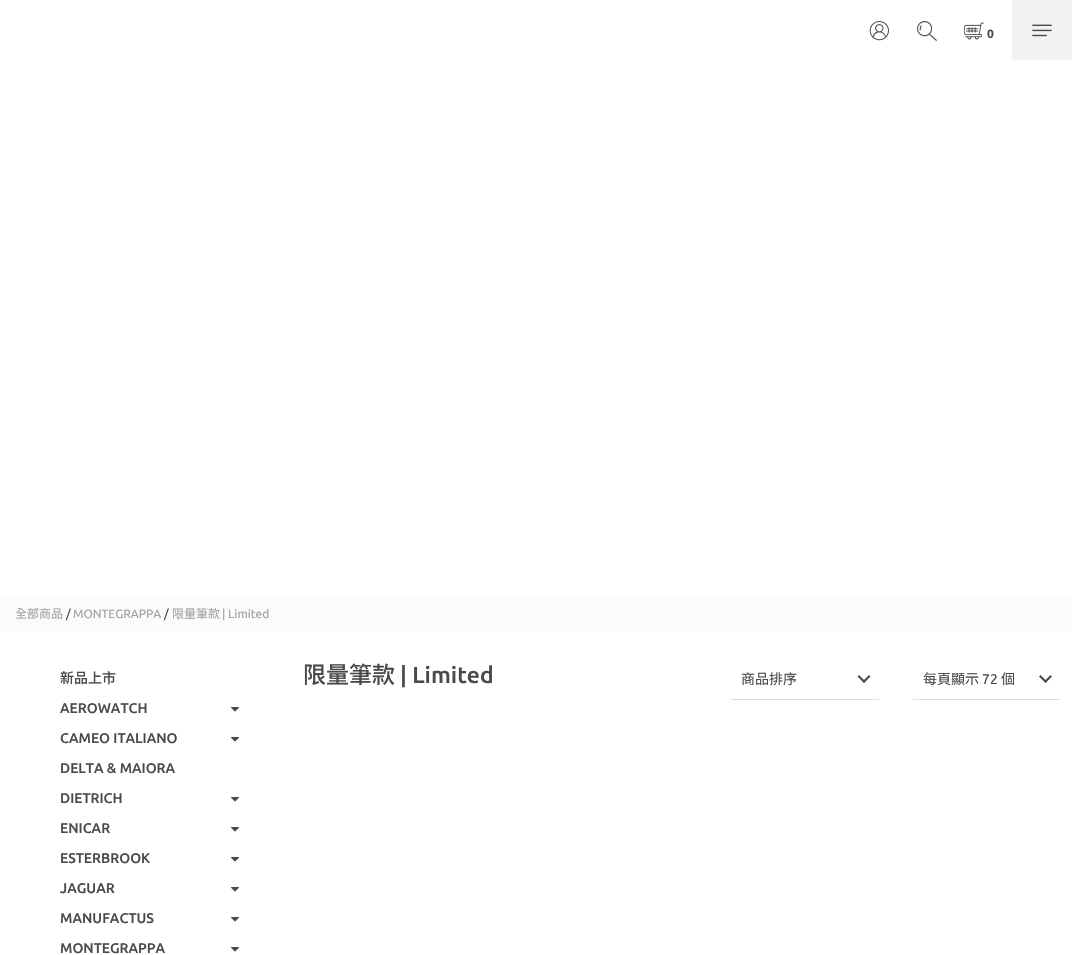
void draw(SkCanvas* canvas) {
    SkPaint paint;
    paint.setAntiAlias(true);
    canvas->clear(0xFFFFFFFF);
    canvas->drawImageRect(SkImages::DeferredFromEncodedData(SkData::MakeFromFileName("img1.png")), SkRect::MakeXYWH(869, 21, 20, 20), SkSamplingOptions());
    canvas->drawImageRect(SkImages::DeferredFromEncodedData(SkData::MakeFromFileName("img2.png")), SkRect::MakeXYWH(917, 21, 20, 20), SkSamplingOptions());
    canvas->drawImageRect(SkImages::DeferredFromEncodedData(SkData::MakeFromFileName("img3.png")), SkRect::MakeXYWH(964, 22, 20, 18), SkSamplingOptions());
    SkFont font1(fontMgr->matchFamilyStyle("Ubuntu", SkFontStyle::Bold()), 12);
    font1.setSubpixel(true);
    paint.setColor(0xFF4A4A4A);
    canvas->drawString("0", 987, 38, font1, paint);
    paint.setColor(0xFFF2F2F2);
    canvas->drawRect(SkRect::MakeXYWH(1012, 0, 60, 60), paint);
    canvas->drawImageRect(SkImages::DeferredFromEncodedData(SkData::MakeFromFileName("img4.png")), SkRect::MakeXYWH(1032, 24, 20, 13), SkSamplingOptions());
    paint.setColor(0xFFFBFBFB);
    canvas->drawRect(SkRect::MakeXYWH(0, 596, 1072, 35), paint);
    SkFont font2(fontMgr->matchFamilyStyle("Noto Sans TC", SkFontStyle::Normal()), 12);
    font2.setSubpixel(true);
    paint.setColor(0xFFA3A3A3);
    canvas->drawString("全部商品", 15, 618, font2, paint);
    SkFont font3(fontMgr->matchFamilyStyle("Ubuntu", SkFontStyle::Normal()), 12);
    font3.setSubpixel(true);
    paint.setColor(0xFF4A4A4A);
    canvas->drawString("/", 66, 618, font3, paint);
    paint.setColor(0xFFA3A3A3);
    canvas->drawString("MONTEGRAPPA", 73, 618, font3, paint);
    paint.setColor(0xFF4A4A4A);
    canvas->drawString("/", 164, 618, font3, paint);
    paint.setColor(0xFFA3A3A3);
    canvas->drawString("限量筆款", 172, 618, font2, paint);
    canvas->drawString("| Limited", 222, 618, font3, paint);
    SkFont font4(fontMgr->matchFamilyStyle("Noto Sans TC", SkFontStyle(500, SkFontStyle::kNormal_Width, SkFontStyle::kUpright_Slant)), 14);
    font4.setSubpixel(true);
    paint.setColor(0xFF4A4A4A);
    canvas->drawString("新品上市", 60, 683, font4, paint);
    SkFont font5(fontMgr->matchFamilyStyle("Ubuntu", SkFontStyle(500, SkFontStyle::kNormal_Width, SkFontStyle::kUpright_Slant)), 14);
    font5.setSubpixel(true);
    canvas->drawString("AEROWATCH", 60, 713, font5, paint);
    canvas->drawImageRect(SkImages::DeferredFromEncodedData(SkData::MakeFromFileName("img5.png")), SkRect::MakeXYWH(231, 707, 8, 5), SkSamplingOptions());
    canvas->drawString("CAMEO ITALIANO", 60, 743, font5, paint);
    canvas->drawImageRect(SkImages::DeferredFromEncodedData(SkData::MakeFromFileName("img5.png")), SkRect::MakeXYWH(231, 737, 8, 5), SkSamplingOptions());
    canvas->drawString("DELTA & MAIORA", 60, 773, font5, paint);
    canvas->drawString("DIETRICH", 60, 803, font5, paint);
    canvas->drawImageRect(SkImages::DeferredFromEncodedData(SkData::MakeFromFileName("img5.png")), SkRect::MakeXYWH(231, 797, 8, 5), SkSamplingOptions());
    canvas->drawString("ENICAR", 60, 833, font5, paint);
    canvas->drawImageRect(SkImages::DeferredFromEncodedData(SkData::MakeFromFileName("img5.png")), SkRect::MakeXYWH(231, 827, 8, 5), SkSamplingOptions());
    canvas->drawString("ESTERBROOK", 60, 863, font5, paint);
    canvas->drawImageRect(SkImages::DeferredFromEncodedData(SkData::MakeFromFileName("img5.png")), SkRect::MakeXYWH(231, 857, 8, 5), SkSamplingOptions());
    canvas->drawString("JAGUAR", 60, 893, font5, paint);
    canvas->drawImageRect(SkImages::DeferredFromEncodedData(SkData::MakeFromFileName("img5.png")), SkRect::MakeXYWH(231, 887, 8, 5), SkSamplingOptions());
    canvas->drawString("MANUFACTUS", 60, 923, font5, paint);
    canvas->drawImageRect(SkImages::DeferredFromEncodedData(SkData::MakeFromFileName("img5.png")), SkRect::MakeXYWH(231, 917, 8, 5), SkSamplingOptions());
    canvas->drawString("MONTEGRAPPA", 60, 953, font5, paint);
    canvas->drawImageRect(SkImages::DeferredFromEncodedData(SkData::MakeFromFileName("img5.png")), SkRect::MakeXYWH(231, 947, 8, 5), SkSamplingOptions());
    SkFont font6(fontMgr->matchFamilyStyle("Noto Sans TC", SkFontStyle(500, SkFontStyle::kNormal_Width, SkFontStyle::kUpright_Slant)), 23);
    font6.setSubpixel(true);
    canvas->drawString("限量筆款", 303, 683, font6, paint);
    SkFont font7(fontMgr->matchFamilyStyle("Ubuntu", SkFontStyle(500, SkFontStyle::kNormal_Width, SkFontStyle::kUpright_Slant)), 23);
    font7.setSubpixel(true);
    canvas->drawString("| Limited", 400, 683, font7, paint);
    paint.setColor(0xFFDDDDDD);
    canvas->drawRect(SkRect::MakeXYWH(731, 699, 148, 1), paint);
    SkFont font8(fontMgr->matchFamilyStyle("Noto Sans TC", SkFontStyle::Normal()), 14);
    font8.setSubpixel(true);
    paint.setColor(0xFF4A4A4A);
    canvas->drawString("商品排序", 741, 684, font8, paint);
    canvas->drawPath(SkPathBuilder().moveTo(869, 675).lineTo(870.5f, 676.5f).lineTo(864, 683).lineTo(862.5f, 681.5f).close().detach(), paint);
    canvas->drawPath(SkPathBuilder().moveTo(859, 675).lineTo(865.5f, 681.5f).lineTo(864, 683).lineTo(857.5f, 676.5f).close().detach(), paint);
    paint.setColor(0xFFDDDDDD);
    canvas->drawRect(SkRect::MakeXYWH(913, 699, 147, 1), paint);
    paint.setColor(0xFF4A4A4A);
    canvas->drawString("每頁顯示", 923, 684, font8, paint);
    SkFont font9(fontMgr->matchFamilyStyle("Ubuntu", SkFontStyle::Normal()), 14);
    font9.setSubpixel(true);
    canvas->drawString("72", 982, 684, font9, paint);
    canvas->drawString("個", 1001, 684, font8, paint);
    canvas->drawPath(SkPathBuilder().moveTo(1050.5f, 675).lineTo(1052, 676.5f).lineTo(1045.5f, 683).lineTo(1044, 681.5f).close().detach(), paint);
    canvas->drawPath(SkPathBuilder().moveTo(1040.5f, 675).lineTo(1047, 681.5f).lineTo(1045.5f, 683).lineTo(1039, 676.5f).close().detach(), paint);
}
